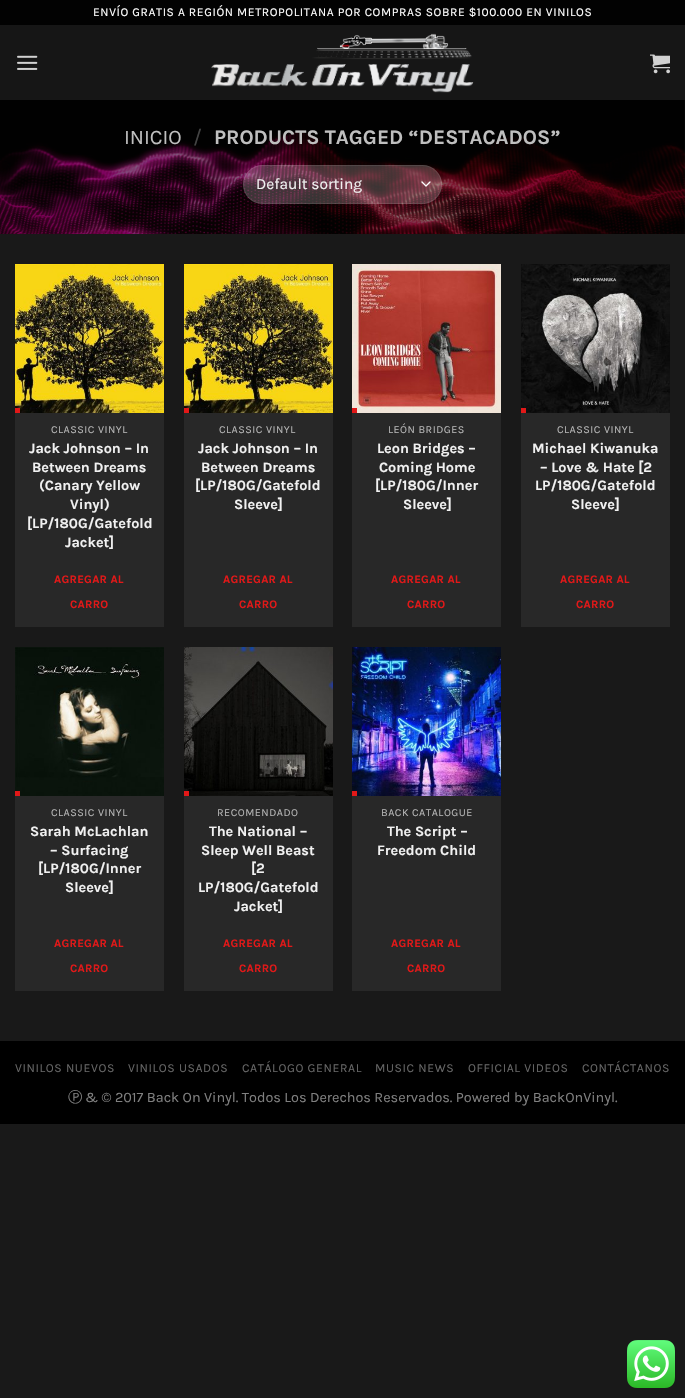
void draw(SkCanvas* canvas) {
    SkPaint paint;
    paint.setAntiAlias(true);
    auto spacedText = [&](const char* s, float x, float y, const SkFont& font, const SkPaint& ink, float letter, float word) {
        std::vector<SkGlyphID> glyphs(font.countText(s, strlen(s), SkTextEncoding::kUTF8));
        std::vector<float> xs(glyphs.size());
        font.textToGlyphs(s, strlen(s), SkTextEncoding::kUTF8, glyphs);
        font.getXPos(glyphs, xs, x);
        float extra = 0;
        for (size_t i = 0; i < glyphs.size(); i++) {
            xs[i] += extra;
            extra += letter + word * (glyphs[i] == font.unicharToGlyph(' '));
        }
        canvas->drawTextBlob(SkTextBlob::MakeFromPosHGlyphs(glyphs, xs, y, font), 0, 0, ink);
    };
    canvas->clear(0xFF191919);
    paint.setColor(0xFF020202);
    canvas->drawRect(SkRect::MakeXYWH(0, 0, 685, 25), paint);
    SkFont font1(fontMgr->matchFamilyStyle("Karla", SkFontStyle::Normal()), 12);
    font1.setSubpixel(true);
    paint.setColor(0xFFFFFFFF);
    spacedText("ENVÍO GRATIS A REGIÓN METROPOLITANA POR COMPRAS SOBRE $100.000 EN VINILOS", 93, 16, font1, paint, 0.6f, 0);
    paint.setColor(0xFF161616);
    canvas->drawRect(SkRect::MakeXYWH(0, 25, 685, 75), paint);
    canvas->drawImageRect(SkImages::DeferredFromEncodedData(SkData::MakeFromFileName("img1.png")), SkRect::MakeXYWH(17, 55, 21, 15), SkSamplingOptions());
    canvas->drawImageRect(SkImages::DeferredFromEncodedData(SkData::MakeFromFileName("img2.png")), SkRect::MakeXYWH(211, 33, 263, 60), SkSamplingOptions());
    canvas->drawImageRect(SkImages::DeferredFromEncodedData(SkData::MakeFromFileName("img3.png")), SkRect::MakeXYWH(650, 54, 20, 20), SkSamplingOptions());
    canvas->drawImageRect(SkImages::DeferredFromEncodedData(SkData::MakeFromFileName("img4.png")), SkRect::MakeXYWH(0, 100, 685, 134), SkSamplingOptions());
    SkFont font2(fontMgr->matchFamilyStyle("Karla", SkFontStyle::Normal()), 20.75f);
    font2.setSubpixel(true);
    paint.setColor(0xFFBFBFBF);
    canvas->drawString("INICIO", 124, 144, font2, paint);
    paint.setColor(0xFF444444);
    canvas->drawString("/", 193, 144, font2, paint);
    SkFont font3(fontMgr->matchFamilyStyle("Karla", SkFontStyle::Bold()), 20.75f);
    font3.setSubpixel(true);
    paint.setColor(0xFFBFBFBF);
    canvas->drawString("PRODUCTS TAGGED “DESTACADOS”", 214, 144, font3, paint);
    paint.setColor(0x33FFFFFF);
    canvas->drawRoundRect(SkRect::MakeXYWH(243, 165, 199, 39), 19.5f, 19.5f, paint);
    paint.setStyle(SkPaint::kStroke_Style);
    paint.setStrokeWidth(1.3f);
    paint.setStrokeCap(SkPaint::kRound_Cap);
    paint.setStrokeJoin(SkPaint::kRound_Join);
    paint.setColor(0xFFFFFFFF);
    canvas->drawPath(SkPathBuilder().moveTo(422, 182).lineTo(426, 186).lineTo(430, 182).detach(), paint);
    paint.setStrokeWidth(1);
    paint.setStrokeCap(SkPaint::kButt_Cap);
    paint.setStrokeJoin(SkPaint::kMiter_Join);
    paint.setColor(0x17FFFFFF);
    canvas->drawRoundRect(SkRect::MakeXYWH(243.5f, 165.5f, 198, 38), 19, 19, paint);
    SkFont font4(fontMgr->matchFamilyStyle("Karla", SkFontStyle::Normal()), 15.5f);
    font4.setSubpixel(true);
    paint.setStyle(SkPaint::kFill_Style);
    paint.setColor(0xFFF1F1F1);
    canvas->drawString("Default sorting", 256, 189, font4, paint);
    paint.setColor(0xFF282828);
    canvas->drawRect(SkRect::MakeXYWH(15, 413, 149, 214), paint);
    canvas->drawImageRect(SkImages::DeferredFromEncodedData(SkData::MakeFromFileName("img5.png")), SkRect::MakeXYWH(15, 264, 149, 149), SkSamplingOptions());
    paint.setColor(0xFFE21818);
    canvas->drawRect(SkRect::MakeXYWH(15, 408, 5, 5), paint);
    SkFont font5(fontMgr->matchFamilyStyle("Karla", SkFontStyle::Normal()), 10.75f);
    font5.setSubpixel(true);
    paint.setColor(0xFFB5B5B5);
    spacedText("CLASSIC VINYL", 51, 433, font5, paint, 0.5f, 0);
    SkFont font6(fontMgr->matchFamilyStyle("Karla", SkFontStyle::Bold()), 14.4f);
    font6.setSubpixel(true);
    paint.setColor(0xFFF1F1F1);
    canvas->drawString("Jack Johnson – In", 29, 453, font6, paint);
    canvas->drawString("Between Dreams", 32, 472, font6, paint);
    canvas->drawString("(Canary Yellow", 39, 490, font6, paint);
    canvas->drawString("Vinyl)", 70, 509, font6, paint);
    canvas->drawString("[LP/180G/Gatefold", 27, 528, font6, paint);
    canvas->drawString("Jacket]", 65, 547, font6, paint);
    SkFont font7(fontMgr->matchFamilyStyle("Karla", SkFontStyle::Bold()), 11.5f);
    font7.setSubpixel(true);
    paint.setColor(0xFFE21818);
    spacedText("AGREGAR AL", 54, 583, font7, paint, 0.25f, 0);
    spacedText("CARRO", 70, 608, font7, paint, 0.25f, 0);
    paint.setColor(0xFF282828);
    canvas->drawRect(SkRect::MakeXYWH(184, 413, 149, 214), paint);
    canvas->drawImageRect(SkImages::DeferredFromEncodedData(SkData::MakeFromFileName("img5.png")), SkRect::MakeXYWH(184, 264, 149, 149), SkSamplingOptions());
    paint.setColor(0xFFE21818);
    canvas->drawRect(SkRect::MakeXYWH(184, 408, 5, 5), paint);
    paint.setColor(0xFFB5B5B5);
    spacedText("CLASSIC VINYL", 219, 433, font5, paint, 0.5f, 0);
    paint.setColor(0xFFF1F1F1);
    canvas->drawString("Jack Johnson – In", 198, 453, font6, paint);
    canvas->drawString("Between Dreams", 201, 472, font6, paint);
    canvas->drawString("[LP/180G/Gatefold", 195, 490, font6, paint);
    canvas->drawString("Sleeve]", 234, 509, font6, paint);
    paint.setColor(0xFFE21818);
    spacedText("AGREGAR AL", 223, 583, font7, paint, 0.25f, 0);
    spacedText("CARRO", 239, 608, font7, paint, 0.25f, 0);
    paint.setColor(0xFF282828);
    canvas->drawRect(SkRect::MakeXYWH(352, 413, 149, 214), paint);
    canvas->drawImageRect(SkImages::DeferredFromEncodedData(SkData::MakeFromFileName("img6.png")), SkRect::MakeXYWH(352, 264, 149, 149), SkSamplingOptions());
    paint.setColor(0xFFE21818);
    canvas->drawRect(SkRect::MakeXYWH(352, 408, 5, 5), paint);
    paint.setColor(0xFFB5B5B5);
    spacedText("LEÓN BRIDGES", 388, 433, font5, paint, 0.5f, 0);
    paint.setColor(0xFFF1F1F1);
    canvas->drawString("Leon Bridges –", 377, 453, font6, paint);
    canvas->drawString("Coming Home", 379, 472, font6, paint);
    canvas->drawString("[LP/180G/Inner", 375, 490, font6, paint);
    canvas->drawString("Sleeve]", 403, 509, font6, paint);
    paint.setColor(0xFFE21818);
    spacedText("AGREGAR AL", 391, 583, font7, paint, 0.25f, 0);
    spacedText("CARRO", 407, 608, font7, paint, 0.25f, 0);
    paint.setColor(0xFF282828);
    canvas->drawRect(SkRect::MakeXYWH(521, 413, 149, 214), paint);
    canvas->drawImageRect(SkImages::DeferredFromEncodedData(SkData::MakeFromFileName("img7.png")), SkRect::MakeXYWH(521, 264, 149, 149), SkSamplingOptions());
    paint.setColor(0xFFE21818);
    canvas->drawRect(SkRect::MakeXYWH(521, 408, 5, 5), paint);
    paint.setColor(0xFFB5B5B5);
    spacedText("CLASSIC VINYL", 557, 433, font5, paint, 0.5f, 0);
    paint.setColor(0xFFF1F1F1);
    canvas->drawString("Michael Kiwanuka", 532, 453, font6, paint);
    canvas->drawString("– Love & Hate [2", 540, 472, font6, paint);
    canvas->drawString("LP/180G/Gatefold", 535, 490, font6, paint);
    canvas->drawString("Sleeve]", 571, 509, font6, paint);
    paint.setColor(0xFFE21818);
    spacedText("AGREGAR AL", 560, 583, font7, paint, 0.25f, 0);
    spacedText("CARRO", 576, 608, font7, paint, 0.25f, 0);
    paint.setColor(0xFF282828);
    canvas->drawRect(SkRect::MakeXYWH(15, 796, 149, 195), paint);
    canvas->drawImageRect(SkImages::DeferredFromEncodedData(SkData::MakeFromFileName("img8.png")), SkRect::MakeXYWH(15, 647, 149, 149), SkSamplingOptions());
    paint.setColor(0xFFE21818);
    canvas->drawRect(SkRect::MakeXYWH(15, 791, 5, 5), paint);
    paint.setColor(0xFFB5B5B5);
    spacedText("CLASSIC VINYL", 51, 816, font5, paint, 0.5f, 0);
    paint.setColor(0xFFF1F1F1);
    canvas->drawString("Sarah McLachlan", 30, 836, font6, paint);
    canvas->drawString("– Surfacing", 50, 855, font6, paint);
    canvas->drawString("[LP/180G/Inner", 38, 873, font6, paint);
    canvas->drawString("Sleeve]", 65, 892, font6, paint);
    paint.setColor(0xFFE21818);
    spacedText("AGREGAR AL", 54, 947, font7, paint, 0.25f, 0);
    spacedText("CARRO", 70, 972, font7, paint, 0.25f, 0);
    paint.setColor(0xFF282828);
    canvas->drawRect(SkRect::MakeXYWH(184, 796, 149, 195), paint);
    canvas->drawImageRect(SkImages::DeferredFromEncodedData(SkData::MakeFromFileName("img9.png")), SkRect::MakeXYWH(184, 647, 149, 149), SkSamplingOptions());
    paint.setColor(0xFFE21818);
    canvas->drawRect(SkRect::MakeXYWH(184, 791, 5, 5), paint);
    paint.setColor(0xFFB5B5B5);
    spacedText("RECOMENDADO", 217, 816, font5, paint, 0.5f, 0);
    paint.setColor(0xFFF1F1F1);
    canvas->drawString("The National –", 209, 836, font6, paint);
    canvas->drawString("Sleep Well Beast", 201, 855, font6, paint);
    canvas->drawString("[2", 251, 873, font6, paint);
    canvas->drawString("LP/180G/Gatefold", 198, 892, font6, paint);
    canvas->drawString("Jacket]", 234, 911, font6, paint);
    paint.setColor(0xFFE21818);
    spacedText("AGREGAR AL", 223, 947, font7, paint, 0.25f, 0);
    spacedText("CARRO", 239, 972, font7, paint, 0.25f, 0);
    paint.setColor(0xFF282828);
    canvas->drawRect(SkRect::MakeXYWH(352, 796, 149, 195), paint);
    canvas->drawImageRect(SkImages::DeferredFromEncodedData(SkData::MakeFromFileName("img10.png")), SkRect::MakeXYWH(352, 647, 149, 149), SkSamplingOptions());
    paint.setColor(0xFFE21818);
    canvas->drawRect(SkRect::MakeXYWH(352, 791, 5, 5), paint);
    paint.setColor(0xFFB5B5B5);
    spacedText("BACK CATALOGUE", 381, 816, font5, paint, 0.5f, 0);
    paint.setColor(0xFFF1F1F1);
    canvas->drawString("The Script –", 387, 836, font6, paint);
    canvas->drawString("Freedom Child", 377, 855, font6, paint);
    paint.setColor(0xFFE21818);
    spacedText("AGREGAR AL", 391, 947, font7, paint, 0.25f, 0);
    spacedText("CARRO", 407, 972, font7, paint, 0.25f, 0);
    paint.setColor(0xFF000000);
    canvas->drawRect(SkRect::MakeXYWH(0, 1041, 685, 83), paint);
    SkFont font8(fontMgr->matchFamilyStyle("Karla", SkFontStyle::Normal()), 12.25f);
    font8.setSubpixel(true);
    paint.setColor(0xFF666666);
    spacedText("VINILOS NUEVOS", 15, 1072, font8, paint, 0.6f, 0);
    spacedText("VINILOS USADOS", 128, 1072, font8, paint, 0.6f, 0);
    spacedText("CATÁLOGO GENERAL", 242, 1072, font8, paint, 0.6f, 0);
    spacedText("MUSIC NEWS", 375, 1072, font8, paint, 0.6f, 0);
    spacedText("OFFICIAL VIDEOS", 468, 1072, font8, paint, 0.6f, 0);
    spacedText("CONTÁCTANOS", 582, 1072, font8, paint, 0.6f, 0);
    SkFont font9(fontMgr->matchFamilyStyle("WenQuanYi Zen Hei", SkFontStyle(500, SkFontStyle::kNormal_Width, SkFontStyle::kUpright_Slant)), 14.4f);
    font9.setSubpixel(true);
    paint.setColor(0xFF808080);
    canvas->drawString("Ⓟ", 68, 1102, font9, paint);
    SkFont font10(fontMgr->matchFamilyStyle("Karla", SkFontStyle::Normal()), 14.4f);
    font10.setSubpixel(true);
    canvas->drawString("& © 2017 Back On Vinyl. Todos Los Derechos Reservados. Powered by BackOnVinyl.", 85, 1102, font10, paint);
    canvas->drawImageRect(SkImages::DeferredFromEncodedData(SkData::MakeFromFileName("img11.png")), SkRect::MakeXYWH(627, 1340, 48, 48), SkSamplingOptions());
}
